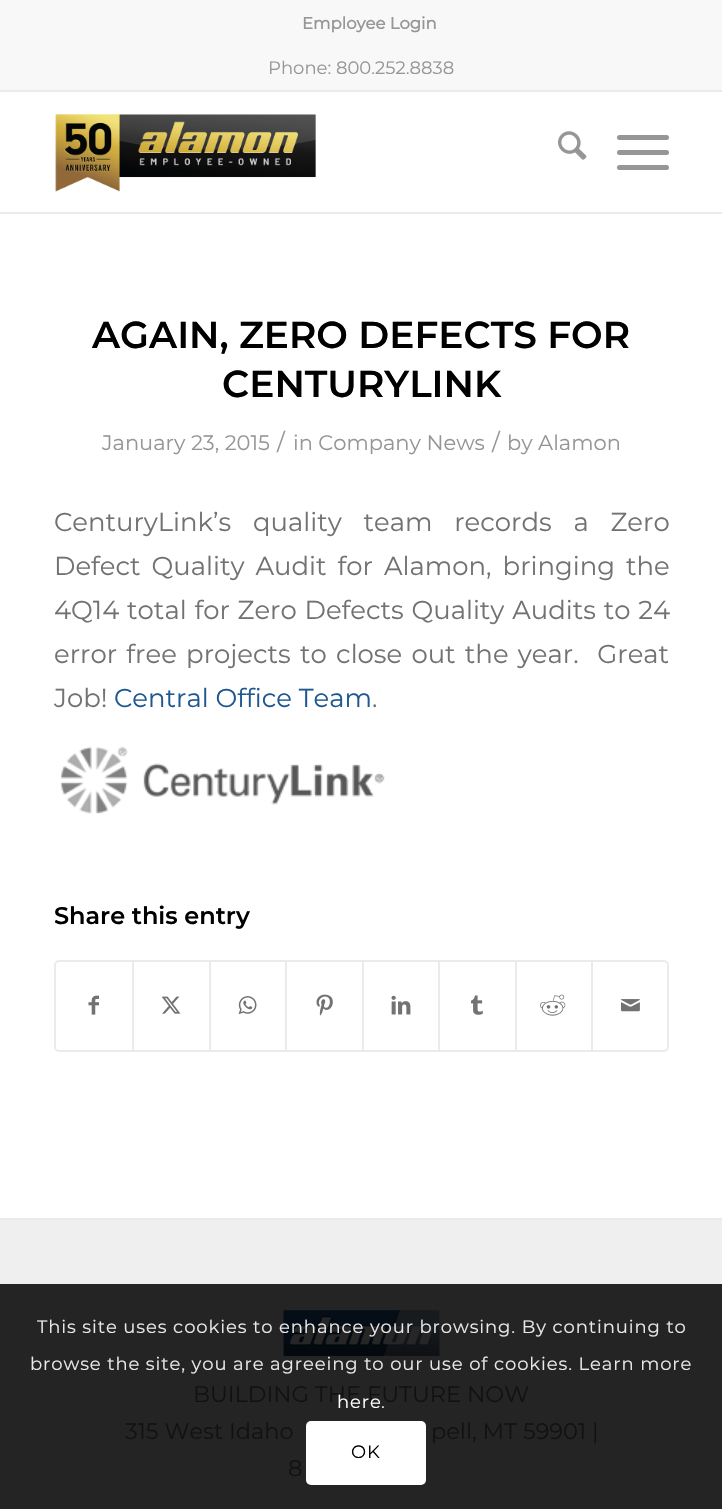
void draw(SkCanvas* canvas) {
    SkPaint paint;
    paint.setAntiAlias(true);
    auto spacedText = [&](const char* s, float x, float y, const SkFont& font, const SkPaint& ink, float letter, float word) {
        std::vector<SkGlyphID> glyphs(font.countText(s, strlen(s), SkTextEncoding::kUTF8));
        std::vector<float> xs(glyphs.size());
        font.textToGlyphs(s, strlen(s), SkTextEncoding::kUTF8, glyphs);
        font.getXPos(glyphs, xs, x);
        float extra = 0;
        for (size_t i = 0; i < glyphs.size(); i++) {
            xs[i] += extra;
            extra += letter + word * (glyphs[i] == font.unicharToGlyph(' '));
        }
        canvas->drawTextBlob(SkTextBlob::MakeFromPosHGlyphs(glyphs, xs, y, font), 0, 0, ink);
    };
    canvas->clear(0xFFFFFFFF);
    paint.setColor(0xFFF8F8F8);
    canvas->drawRect(SkRect::MakeXYWH(0, 0, 722, 90), paint);
    paint.setColor(0xFFEBEBEB);
    canvas->drawRect(SkRect::MakeXYWH(0, 90, 722, 2), paint);
    SkFont font1(fontMgr->matchFamilyStyle("Montserrat", SkFontStyle::Bold()), 16.5f);
    font1.setSubpixel(true);
    paint.setColor(0xFF969696);
    canvas->drawString("Employee Login", 302, 29, font1, paint);
    SkFont font2(fontMgr->matchFamilyStyle("Montserrat", SkFontStyle(100, SkFontStyle::kNormal_Width, SkFontStyle::kUpright_Slant)), 18);
    font2.setSubpixel(true);
    canvas->drawString("Phone: 800.252.8838", 268, 74, font2, paint);
    paint.setColor(0xFFEBEBEB);
    canvas->drawRect(SkRect::MakeXYWH(0, 212, 722, 2), paint);
    canvas->drawImageRect(SkImages::DeferredFromEncodedData(SkData::MakeFromFileName("img1.png")), SkRect::MakeXYWH(55, 113, 261, 79), SkSamplingOptions());
    canvas->drawImageRect(SkImages::DeferredFromEncodedData(SkData::MakeFromFileName("img2.png")), SkRect::MakeXYWH(558, 131, 29, 29), SkSamplingOptions());
    paint.setColor(0xFF969696);
    canvas->drawRoundRect(SkRect::MakeXYWH(617, 150, 52, 5), 2.5f, 2.5f, paint);
    canvas->drawRoundRect(SkRect::MakeXYWH(617, 135, 52, 5), 2.5f, 2.5f, paint);
    canvas->drawRoundRect(SkRect::MakeXYWH(617, 165, 52, 5), 2.5f, 2.5f, paint);
    SkFont font3(fontMgr->matchFamilyStyle("Montserrat", SkFontStyle(600, SkFontStyle::kNormal_Width, SkFontStyle::kUpright_Slant)), 37.5f);
    font3.setSubpixel(true);
    paint.setColor(0xFF000000);
    canvas->drawString("AGAIN, ZERO DEFECTS FOR", 92, 348, font3, paint);
    canvas->drawString("CENTURYLINK", 222, 397, font3, paint);
    SkFont font4(fontMgr->matchFamilyStyle("Montserrat", SkFontStyle(100, SkFontStyle::kNormal_Width, SkFontStyle::kUpright_Slant)), 21);
    font4.setSubpixel(true);
    paint.setColor(0xFF969696);
    canvas->drawString("January 23, 2015", 102, 450, font4, paint);
    SkFont font5(fontMgr->matchFamilyStyle("Montserrat", SkFontStyle(100, SkFontStyle::kNormal_Width, SkFontStyle::kUpright_Slant)), 23);
    font5.setSubpixel(true);
    canvas->drawString("/", 277, 450, font5, paint);
    canvas->drawString("in Company News", 293, 450, font4, paint);
    canvas->drawString("/", 492, 450, font5, paint);
    canvas->drawString("by Alamon", 507, 450, font4, paint);
    SkFont font6(fontMgr->matchFamilyStyle("Montserrat", SkFontStyle(100, SkFontStyle::kNormal_Width, SkFontStyle::kUpright_Slant)), 25.9f);
    font6.setSubpixel(true);
    paint.setColor(0xFF727272);
    spacedText("CenturyLink’s quality team records a Zero", 54, 531, font6, paint, 0, 15);
    spacedText("Defect Quality Audit for Alamon, bringing the", 54, 575, font6, paint, 0, 4.25f);
    spacedText("4Q14 total for Zero Defects Quality Audits to 24", 54, 619, font6, paint, 0, 1);
    spacedText("error free projects to close out the year.  Great", 54, 663, font6, paint, 0, 2.5f);
    canvas->drawString("Job!", 54, 707, font6, paint);
    paint.setColor(0xFF1F5891);
    canvas->drawString("Central Office Team", 114, 707, font6, paint);
    paint.setColor(0xFF727272);
    canvas->drawString(".", 372, 707, font6, paint);
    canvas->drawImageRect(SkImages::DeferredFromEncodedData(SkData::MakeFromFileName("img3.png")), SkRect::MakeXYWH(60, 746, 325, 68), SkSamplingOptions());
    SkFont font7(fontMgr->matchFamilyStyle("Montserrat", SkFontStyle(600, SkFontStyle::kNormal_Width, SkFontStyle::kUpright_Slant)), 24);
    font7.setSubpixel(true);
    paint.setColor(0xFF000000);
    canvas->drawString("Share this entry", 54, 924, font7, paint);
    paint.setStyle(SkPaint::kStroke_Style);
    paint.setStrokeWidth(2);
    paint.setColor(0xFFEBEBEB);
    canvas->drawRoundRect(SkRect::MakeXYWH(55, 961, 613, 90), 4, 4, paint);
    canvas->drawImageRect(SkImages::DeferredFromEncodedData(SkData::MakeFromFileName("img4.png")), SkRect::MakeXYWH(88, 995, 11, 20), SkSamplingOptions());
    paint.setStyle(SkPaint::kFill_Style);
    canvas->drawRect(SkRect::MakeXYWH(132, 962, 2, 88), paint);
    canvas->drawImageRect(SkImages::DeferredFromEncodedData(SkData::MakeFromFileName("img5.png")), SkRect::MakeXYWH(161, 996, 20, 18), SkSamplingOptions());
    canvas->drawRect(SkRect::MakeXYWH(209, 962, 2, 88), paint);
    canvas->drawImageRect(SkImages::DeferredFromEncodedData(SkData::MakeFromFileName("img6.png")), SkRect::MakeXYWH(238, 996, 19, 19), SkSamplingOptions());
    canvas->drawRect(SkRect::MakeXYWH(285, 962, 2, 88), paint);
    canvas->drawImageRect(SkImages::DeferredFromEncodedData(SkData::MakeFromFileName("img7.png")), SkRect::MakeXYWH(316, 994, 17, 22), SkSamplingOptions());
    canvas->drawRect(SkRect::MakeXYWH(362, 962, 2, 88), paint);
    canvas->drawImageRect(SkImages::DeferredFromEncodedData(SkData::MakeFromFileName("img8.png")), SkRect::MakeXYWH(391, 995, 20, 20), SkSamplingOptions());
    canvas->drawRect(SkRect::MakeXYWH(438, 962, 2, 88), paint);
    canvas->drawImageRect(SkImages::DeferredFromEncodedData(SkData::MakeFromFileName("img9.png")), SkRect::MakeXYWH(471, 995, 12, 20), SkSamplingOptions());
    canvas->drawRect(SkRect::MakeXYWH(515, 962, 2, 88), paint);
    canvas->drawImageRect(SkImages::DeferredFromEncodedData(SkData::MakeFromFileName("img10.png")), SkRect::MakeXYWH(540, 994, 26, 22), SkSamplingOptions());
    canvas->drawRect(SkRect::MakeXYWH(591, 962, 2, 88), paint);
    canvas->drawImageRect(SkImages::DeferredFromEncodedData(SkData::MakeFromFileName("img11.png")), SkRect::MakeXYWH(621, 999, 19, 13), SkSamplingOptions());
    paint.setColor(0xFFEFEFEF);
    canvas->drawRect(SkRect::MakeXYWH(0, 1220, 722, 64), paint);
    paint.setColor(0xFF242424);
    canvas->drawRect(SkRect::MakeXYWH(0, 1284, 722, 225), paint);
    paint.setColor(0xFFEBEBEB);
    canvas->drawRect(SkRect::MakeXYWH(0, 1218, 722, 2), paint);
    canvas->drawImageRect(SkImages::DeferredFromEncodedData(SkData::MakeFromFileName("img12.png")), SkRect::MakeXYWH(283, 1310, 157, 46), SkSamplingOptions());
    SkFont font8(fontMgr->matchFamilyStyle("Montserrat", SkFontStyle(100, SkFontStyle::kNormal_Width, SkFontStyle::kUpright_Slant)), 22.5f);
    font8.setSubpixel(true);
    paint.setColor(0xFF111111);
    canvas->drawString("BUILDING THE FUTURE NOW", 193, 1402, font8, paint);
    canvas->drawString("315 West Idaho", 125, 1439, font8, paint);
    canvas->drawString("pell, MT 59901 |", 431, 1439, font8, paint);
    canvas->drawString("8", 288, 1476, font8, paint);
    paint.setColor(0xFFE9E9E9);
    spacedText("This site uses cookies to enhance your browsing. By continuing to", 37, 1333, font2, paint, 0.9f, 0);
    spacedText("browse the site, you are agreeing to our use of cookies. Learn more", 30, 1370, font2, paint, 0.9f, 0);
    paint.setColor(0xFFFFFFFF);
    spacedText("here", 337, 1408, font2, paint, 0.9f, 0);
    paint.setColor(0xFFE9E9E9);
    spacedText(".", 381, 1408, font2, paint, 0.9f, 0);
    paint.setColor(0xFFFFFFFF);
    canvas->drawRoundRect(SkRect::MakeXYWH(306, 1421, 120, 64), 5, 5, paint);
    paint.setColor(0xFF000000);
    spacedText("OK", 351, 1458, font2, paint, 0.9f, 0);
}
